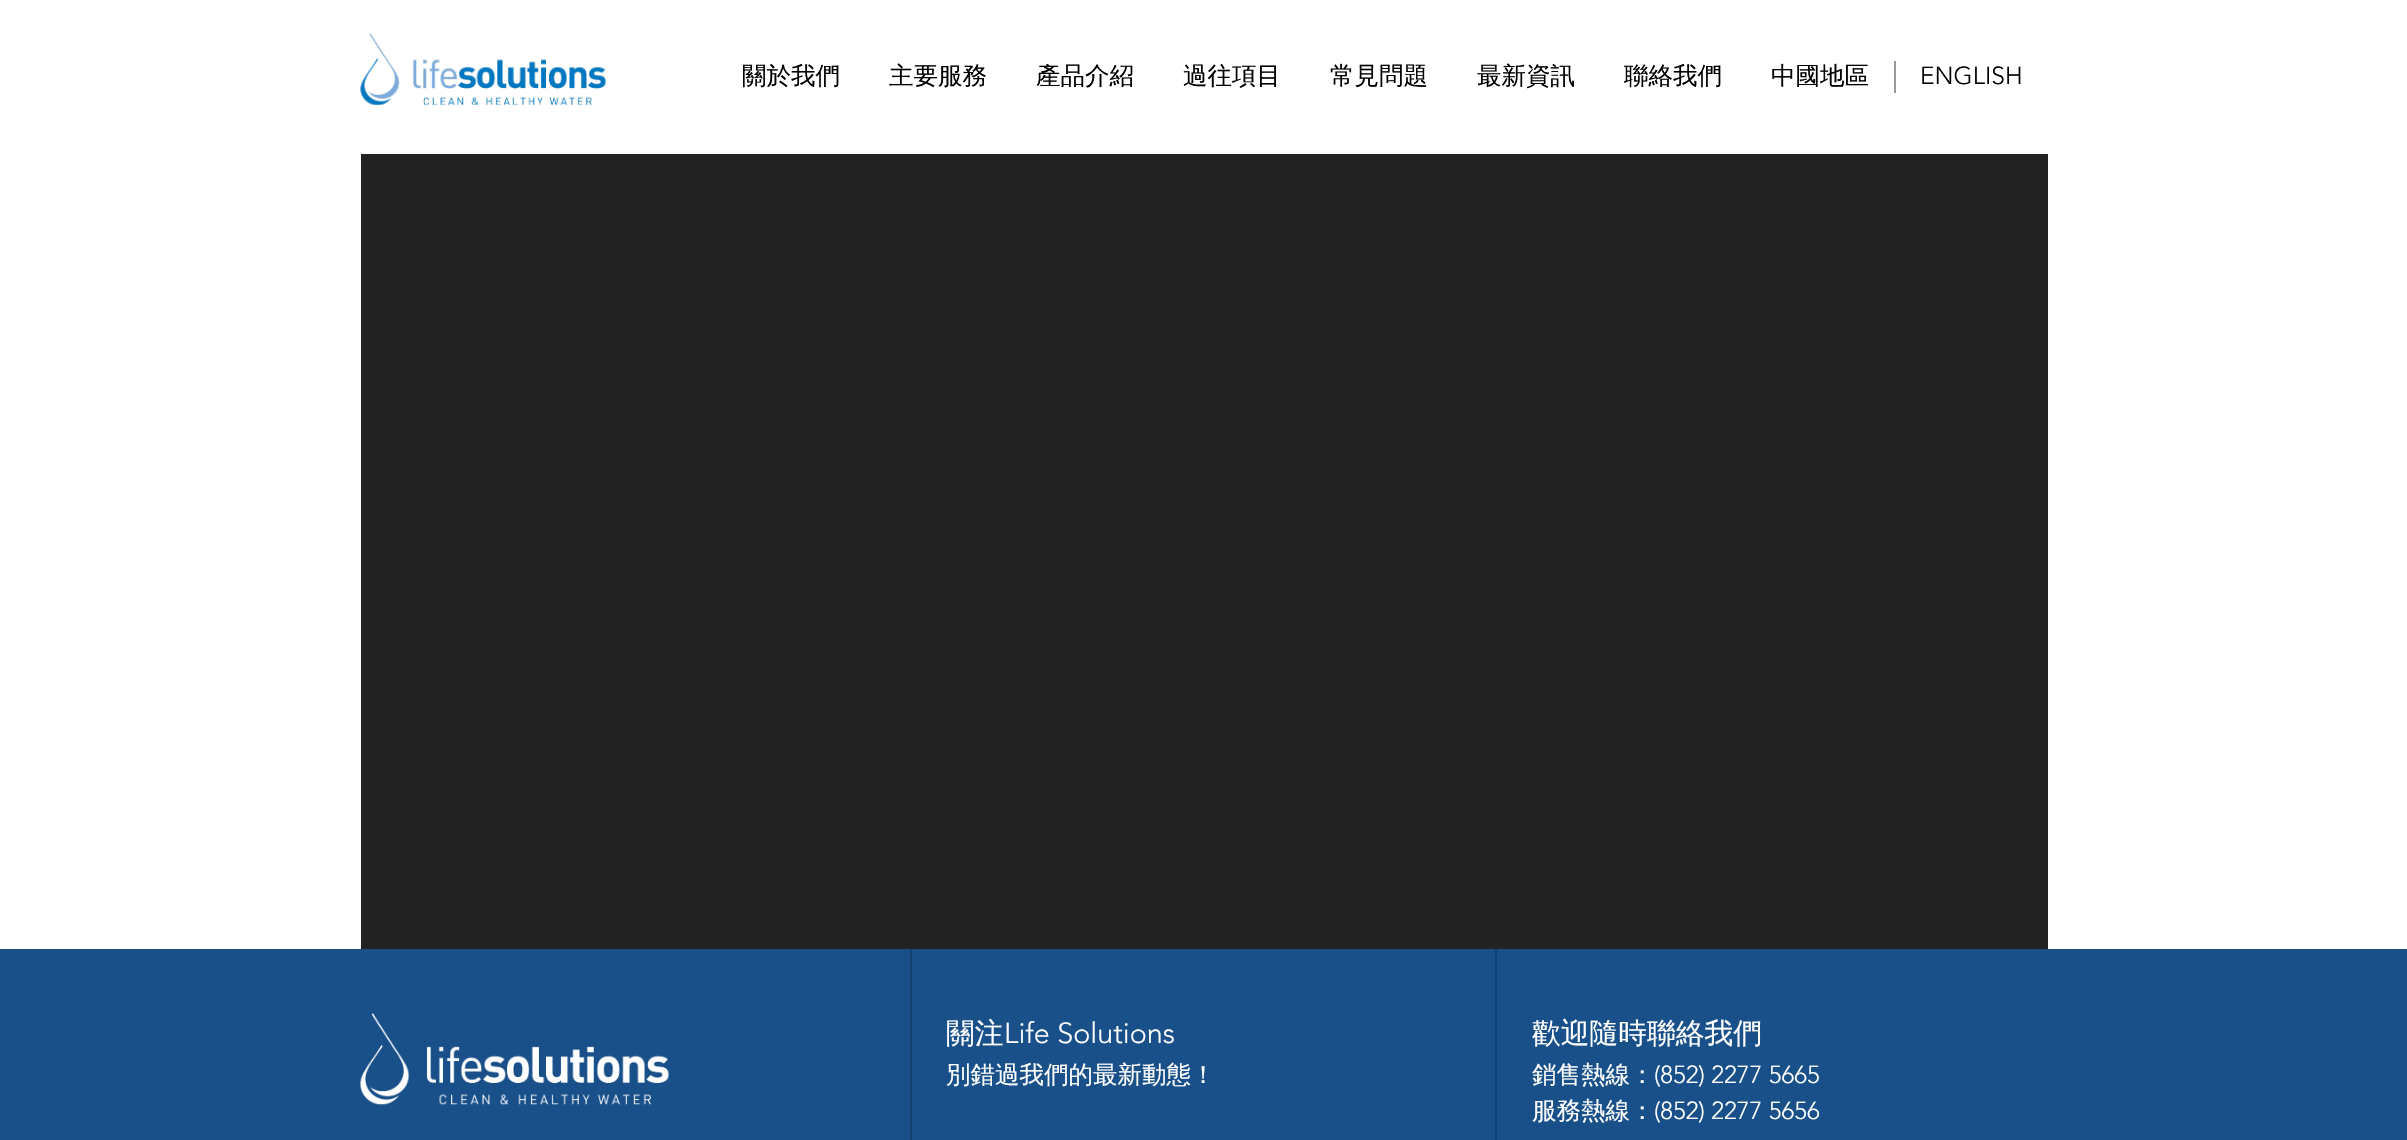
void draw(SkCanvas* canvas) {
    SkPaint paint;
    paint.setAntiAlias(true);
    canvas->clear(0xFFFFFFFF);
    canvas->drawImageRect(SkImages::DeferredFromEncodedData(SkData::MakeFromFileName("img1.png")), SkRect::MakeXYWH(360, 33, 246, 72), SkSamplingOptions());
    SkFont font1(fontMgr->matchFamilyStyle("WenQuanYi Zen Hei", SkFontStyle(500, SkFontStyle::kNormal_Width, SkFontStyle::kUpright_Slant)), 24.5f);
    font1.setSubpixel(true);
    paint.setColor(0xFF000000);
    canvas->drawString("關於我們", 742, 84, font1, paint);
    canvas->drawString("主要服務", 889, 84, font1, paint);
    canvas->drawString("產品介紹", 1036, 84, font1, paint);
    canvas->drawString("過往項目", 1183, 84, font1, paint);
    canvas->drawString("常見問題", 1330, 84, font1, paint);
    canvas->drawString("最新資訊", 1477, 84, font1, paint);
    canvas->drawString("聯絡我們", 1624, 84, font1, paint);
    canvas->drawString("中國地區", 1771, 84, font1, paint);
    paint.setColor(0xFF999999);
    canvas->drawRect(SkRect::MakeXYWH(1894, 61, 2, 32), paint);
    SkFont font2(fontMgr->matchFamilyStyle("Avenir", SkFontStyle(300, SkFontStyle::kNormal_Width, SkFontStyle::kUpright_Slant)), 24.5f);
    font2.setSubpixel(true);
    paint.setColor(0xFF000000);
    canvas->drawString("ENGLISH", 1920, 84, font2, paint);
    paint.setColor(0xFF222222);
    canvas->drawRect(SkRect::MakeXYWH(361, 154, 1687, 795), paint);
    paint.setColor(0xFF195089);
    canvas->drawRect(SkRect::MakeXYWH(0, 949, 2407, 191), paint);
    paint.setColor(0xFF134172);
    canvas->drawRect(SkRect::MakeXYWH(910, 949, 2, 191), paint);
    canvas->drawImageRect(SkImages::DeferredFromEncodedData(SkData::MakeFromFileName("img2.png")), SkRect::MakeXYWH(360, 1013, 309, 92), SkSamplingOptions());
    canvas->drawRect(SkRect::MakeXYWH(1495, 949, 2, 191), paint);
    SkFont font3(fontMgr->matchFamilyStyle("WenQuanYi Zen Hei", SkFontStyle(500, SkFontStyle::kNormal_Width, SkFontStyle::kUpright_Slant)), 28.75f);
    font3.setSubpixel(true);
    paint.setColor(0xFFFFFFFF);
    canvas->drawString("關注", 946, 1043, font3, paint);
    SkFont font4(fontMgr->matchFamilyStyle("Avenir", SkFontStyle(300, SkFontStyle::kNormal_Width, SkFontStyle::kUpright_Slant)), 28.75f);
    font4.setSubpixel(true);
    canvas->drawString("Life Solutions", 1004, 1043, font4, paint);
    canvas->drawString("別錯過我們的最新動態！", 946, 1083, font1, paint);
    canvas->drawString("歡迎隨時聯絡我們", 1532, 1043, font3, paint);
    canvas->drawString("銷售熱線：", 1532, 1083, font1, paint);
    canvas->drawString("(852) 2277 5665", 1654, 1083, font2, paint);
    canvas->drawString("服務熱線：", 1532, 1119, font1, paint);
    canvas->drawString("(852) 2277 5656", 1654, 1119, font2, paint);
}
